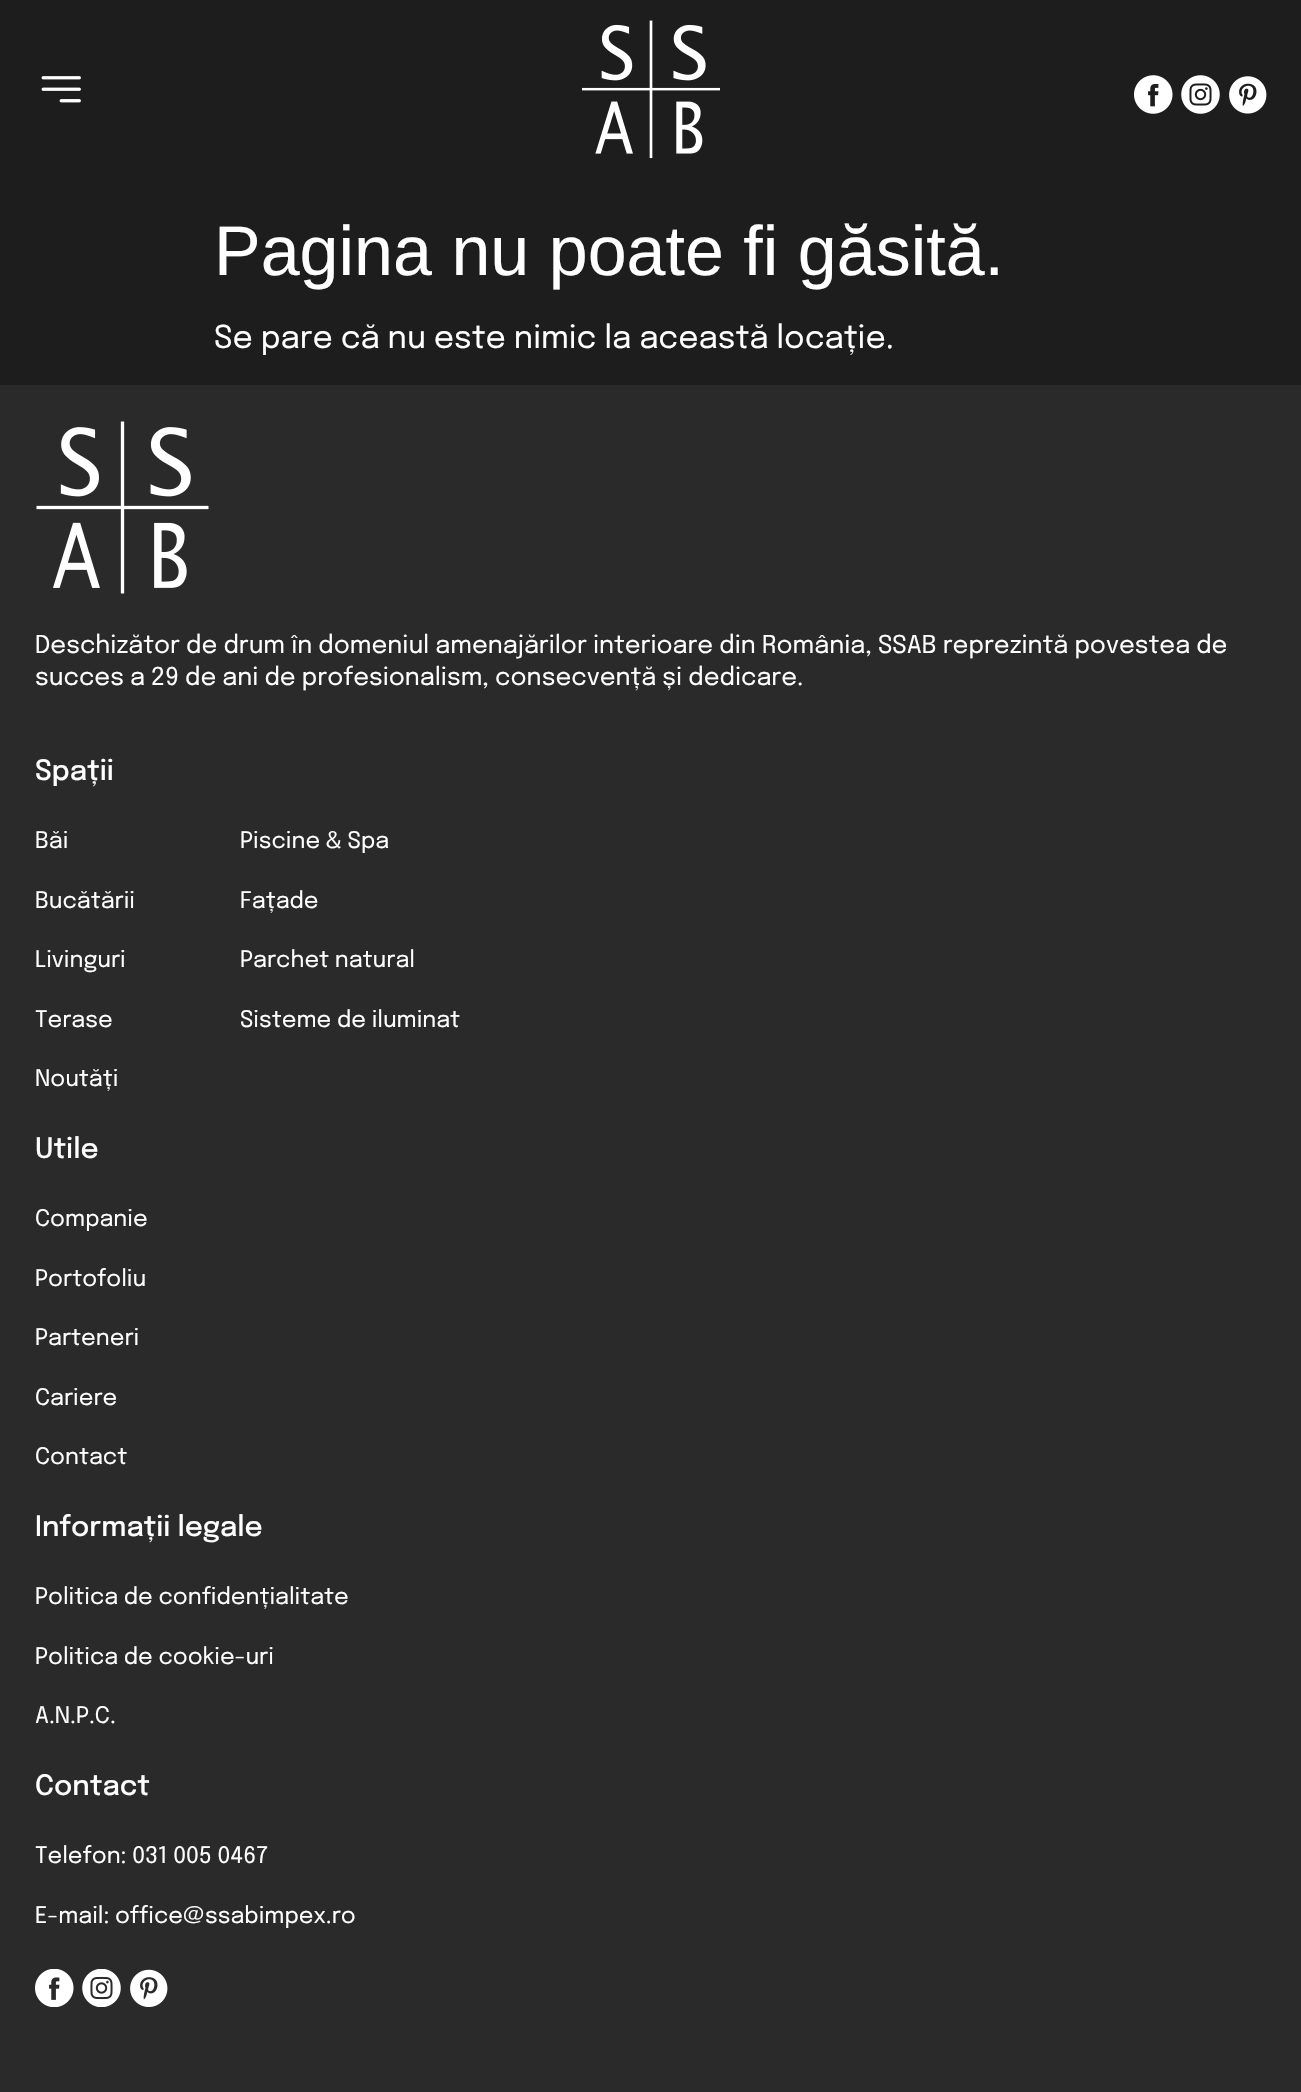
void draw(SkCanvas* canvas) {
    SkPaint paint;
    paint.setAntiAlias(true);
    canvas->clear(0xFF1D1D1D);
    canvas->drawImageRect(SkImages::DeferredFromEncodedData(SkData::MakeFromFileName("img1.png")), SkRect::MakeXYWH(41, 76, 40, 27), SkSamplingOptions());
    canvas->drawImageRect(SkImages::DeferredFromEncodedData(SkData::MakeFromFileName("img2.png")), SkRect::MakeXYWH(582, 20, 138, 139), SkSamplingOptions());
    canvas->drawImageRect(SkImages::DeferredFromEncodedData(SkData::MakeFromFileName("img3.png")), SkRect::MakeXYWH(1134, 75, 39, 39), SkSamplingOptions());
    canvas->drawImageRect(SkImages::DeferredFromEncodedData(SkData::MakeFromFileName("img4.png")), SkRect::MakeXYWH(1181, 75, 39, 39), SkSamplingOptions());
    canvas->drawImageRect(SkImages::DeferredFromEncodedData(SkData::MakeFromFileName("img5.png")), SkRect::MakeXYWH(1229, 76, 38, 38), SkSamplingOptions());
    SkFont font1(fontMgr->matchFamilyStyle("Liberation Sans", SkFontStyle::Normal()), 70);
    font1.setSubpixel(true);
    paint.setColor(0xFFFFFFFF);
    canvas->drawString("Pagina nu poate fi găsită.", 214, 275, font1, paint);
    SkFont font2(fontMgr->matchFamilyStyle("Epilogue", SkFontStyle::Normal()), 31.5f);
    font2.setSubpixel(true);
    canvas->drawString("Se pare că nu este nimic la această locație.", 214, 348, font2, paint);
    paint.setColor(0xFF2A2A2A);
    canvas->drawRect(SkRect::MakeXYWH(0, 385, 1301, 1707), paint);
    canvas->drawImageRect(SkImages::DeferredFromEncodedData(SkData::MakeFromFileName("img6.png")), SkRect::MakeXYWH(36, 421, 173, 173), SkSamplingOptions());
    SkFont font3(fontMgr->matchFamilyStyle("Epilogue", SkFontStyle::Normal()), 24.5f);
    font3.setSubpixel(true);
    paint.setColor(0xFFFFFFFF);
    canvas->drawString("Deschizător de drum în domeniul amenajărilor interioare din România, SSAB reprezintă povestea de", 35, 653, font3, paint);
    canvas->drawString("succes a 29 de ani de profesionalism, consecvență și dedicare.", 35, 685, font3, paint);
    SkFont font4(fontMgr->matchFamilyStyle("Epilogue", SkFontStyle(500, SkFontStyle::kNormal_Width, SkFontStyle::kUpright_Slant)), 28);
    font4.setSubpixel(true);
    canvas->drawString("Spații", 35, 780, font4, paint);
    SkFont font5(fontMgr->matchFamilyStyle("Epilogue", SkFontStyle::Normal()), 22.75f);
    font5.setSubpixel(true);
    canvas->drawString("Băi", 35, 848, font5, paint);
    canvas->drawString("Bucătării", 35, 908, font5, paint);
    canvas->drawString("Livinguri", 35, 967, font5, paint);
    canvas->drawString("Terase", 35, 1027, font5, paint);
    canvas->drawString("Noutăți", 35, 1086, font5, paint);
    canvas->drawString("Piscine & Spa", 240, 848, font5, paint);
    canvas->drawString("Fațade", 240, 908, font5, paint);
    canvas->drawString("Parchet natural", 240, 967, font5, paint);
    canvas->drawString("Sisteme de iluminat", 240, 1027, font5, paint);
    canvas->drawString("Utile", 35, 1158, font4, paint);
    canvas->drawString("Companie", 35, 1226, font5, paint);
    canvas->drawString("Portofoliu", 35, 1286, font5, paint);
    canvas->drawString("Parteneri", 35, 1345, font5, paint);
    canvas->drawString("Cariere", 35, 1405, font5, paint);
    canvas->drawString("Contact", 35, 1464, font5, paint);
    canvas->drawString("Informații legale", 35, 1536, font4, paint);
    canvas->drawString("Politica de confidențialitate", 35, 1604, font5, paint);
    canvas->drawString("Politica de cookie-uri", 35, 1664, font5, paint);
    canvas->drawString("A.N.P.C.", 35, 1723, font5, paint);
    canvas->drawString("Contact", 35, 1795, font4, paint);
    canvas->drawString("Telefon: 031 005 0467", 35, 1863, font5, paint);
    canvas->drawString("E-mail: office@ssabimpex.ro", 35, 1923, font5, paint);
    canvas->drawImageRect(SkImages::DeferredFromEncodedData(SkData::MakeFromFileName("img7.png")), SkRect::MakeXYWH(35, 1969, 39, 38), SkSamplingOptions());
    canvas->drawImageRect(SkImages::DeferredFromEncodedData(SkData::MakeFromFileName("img8.png")), SkRect::MakeXYWH(82, 1969, 39, 38), SkSamplingOptions());
    canvas->drawImageRect(SkImages::DeferredFromEncodedData(SkData::MakeFromFileName("img9.png")), SkRect::MakeXYWH(130, 1969, 38, 38), SkSamplingOptions());
}
